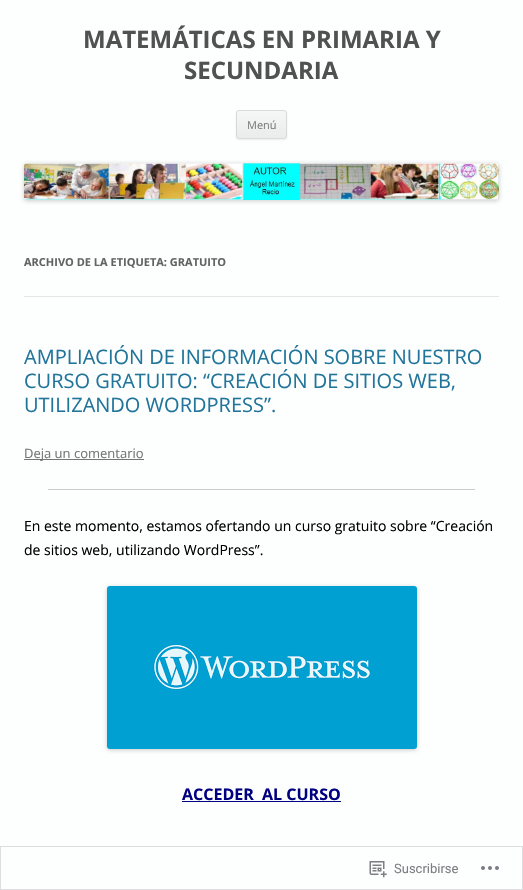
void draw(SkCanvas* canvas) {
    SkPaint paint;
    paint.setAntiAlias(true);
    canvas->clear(0xFFFDFEFE);
    SkFont font1(fontMgr->matchFamilyStyle("Open Sans", SkFontStyle::Bold()), 24);
    font1.setSubpixel(true);
    paint.setColor(0xFF515151);
    canvas->drawString("MATEMÁTICAS EN PRIMARIA Y", 83, 48, font1, paint);
    canvas->drawString("SECUNDARIA", 184, 79, font1, paint);
    canvas->save();
    canvas->clipPath(SkPathBuilder(SkPathFillType::kEvenOdd).moveTo(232, 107).lineTo(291, 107).lineTo(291, 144).lineTo(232, 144).close().moveTo(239, 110).lineTo(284, 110).cubicTo(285.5f, 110, 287, 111.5f, 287, 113).lineTo(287, 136).cubicTo(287, 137.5f, 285.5f, 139, 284, 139).lineTo(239, 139).cubicTo(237.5f, 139, 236, 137.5f, 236, 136).lineTo(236, 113).cubicTo(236, 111.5f, 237.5f, 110, 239, 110).close().detach(), true);
    paint.setColor(0x1A404040);
    paint.setMaskFilter(SkMaskFilter::MakeBlur(kNormal_SkBlurStyle, 1));
    canvas->drawRoundRect(SkRect::MakeXYWH(236, 111, 51, 29), 3, 3, paint);
    paint.setMaskFilter(nullptr);
    canvas->restore();
    paint.setColor(0x1AE0EFF1);
    canvas->drawRoundRect(SkRect::MakeXYWH(236, 110, 51, 29), 3, 3, paint);
    canvas->save();
    canvas->clipPath(SkPathBuilder().moveTo(239, 110).lineTo(284, 110).cubicTo(285.5f, 110, 287, 111.5f, 287, 113).lineTo(287, 136).cubicTo(287, 137.5f, 285.5f, 139, 284, 139).lineTo(239, 139).cubicTo(237.5f, 139, 236, 137.5f, 236, 136).lineTo(236, 113).cubicTo(236, 111.5f, 237.5f, 110, 239, 110).close().detach(), true);
    {
        const SkColor colors[] = {0xCCF4F4F4, 0xCCE6E6E6};
        const float stops[] = {0, 1};
        const SkPoint ends[] = {{262, 111}, {262, 138}};
        paint.setShader(SkGradientShader::MakeLinear(ends, colors, stops, 2, SkTileMode::kClamp));
        paint.setAlpha(255);
    }
    canvas->drawRect(SkRect::MakeXYWH(236, 111, 51, 27), paint);
    canvas->restore();
    paint.setStyle(SkPaint::kStroke_Style);
    paint.setStrokeWidth(1);
    paint.setShader(nullptr);
    paint.setColor(0xCCD2D2D2);
    canvas->drawRoundRect(SkRect::MakeXYWH(236.5f, 110.5f, 50, 28), 2.5f, 2.5f, paint);
    SkFont font2(fontMgr->matchFamilyStyle("Open Sans", SkFontStyle::Normal()), 11);
    font2.setSubpixel(true);
    paint.setStyle(SkPaint::kFill_Style);
    paint.setColor(0xFF7C7C7C);
    canvas->drawString("Menú", 247, 129, font2, paint);
    paint.setColor(0x33000000);
    paint.setMaskFilter(SkMaskFilter::MakeBlur(kNormal_SkBlurStyle, 2));
    canvas->drawRoundRect(SkRect::MakeXYWH(24, 164, 475, 37), 3, 3, paint);
    paint.setMaskFilter(nullptr);
    canvas->drawImageRect(SkImages::DeferredFromEncodedData(SkData::MakeFromFileName("img1.png")), SkRect::MakeXYWH(24, 163, 475, 37), SkSamplingOptions());
    paint.setColor(0xFFE4E5E5);
    canvas->drawRect(SkRect::MakeXYWH(24, 296, 475, 1), paint);
    SkFont font3(fontMgr->matchFamilyStyle("Open Sans", SkFontStyle::Bold()), 11);
    font3.setSubpixel(true);
    paint.setColor(0xFF636363);
    canvas->drawString("ARCHIVO DE LA ETIQUETA: GRATUITO", 24, 266, font3, paint);
    SkFont font4(fontMgr->matchFamilyStyle("Open Sans", SkFontStyle::Normal()), 20);
    font4.setSubpixel(true);
    paint.setColor(0xFF21759B);
    canvas->drawString("AMPLIACIÓN DE INFORMACIÓN SOBRE NUESTRO", 24, 364, font4, paint);
    canvas->drawString("CURSO GRATUITO: “CREACIÓN DE SITIOS WEB,", 24, 388, font4, paint);
    canvas->drawString("UTILIZANDO WORDPRESS”.", 24, 412, font4, paint);
    paint.setColor(0xFF757575);
    canvas->drawRect(SkRect::MakeXYWH(24, 459, 120, 1), paint);
    SkFont font5(fontMgr->matchFamilyStyle("Open Sans", SkFontStyle::Normal()), 13);
    font5.setSubpixel(true);
    canvas->drawString("Deja un comentario", 24, 458, font5, paint);
    paint.setColor(0xFFCCCCCC);
    canvas->drawRect(SkRect::MakeXYWH(48, 489, 427, 1), paint);
    SkFont font6(fontMgr->matchFamilyStyle("Open Sans", SkFontStyle::Normal()), 14);
    font6.setSubpixel(true);
    paint.setColor(0xFF000000);
    canvas->drawString("En este momento, estamos ofertando un curso gratuito sobre “Creación", 24, 531, font6, paint);
    canvas->drawString("de sitios web, utilizando WordPress”.", 24, 555, font6, paint);
    paint.setColor(0x33000000);
    paint.setMaskFilter(SkMaskFilter::MakeBlur(kNormal_SkBlurStyle, 2));
    canvas->drawRoundRect(SkRect::MakeXYWH(107, 587, 310, 163), 3, 3, paint);
    paint.setMaskFilter(nullptr);
    canvas->drawImageRect(SkImages::DeferredFromEncodedData(SkData::MakeFromFileName("img2.png")), SkRect::MakeXYWH(107, 586, 310, 163), SkSamplingOptions());
    SkFont font7(fontMgr->matchFamilyStyle("Open Sans", SkFontStyle::Bold()), 16);
    font7.setSubpixel(true);
    paint.setColor(0xFF000080);
    canvas->drawString("ACCEDER  AL CURSO", 182, 800, font7, paint);
    canvas->drawRect(SkRect::MakeXYWH(182, 801, 159, 1), paint);
    paint.setStyle(SkPaint::kStroke_Style);
    paint.setColor(0xFADCDCDE);
    canvas->drawRect(SkRect::MakeXYWH(0.5f, 846.5f, 522, 43), paint);
    canvas->drawImageRect(SkImages::DeferredFromEncodedData(SkData::MakeFromFileName("img3.png")), SkRect::MakeXYWH(369, 861, 18, 17), SkSamplingOptions());
    SkFont font8(fontMgr->matchFamilyStyle("Roboto", SkFontStyle::Normal()), 13);
    font8.setSubpixel(true);
    paint.setStyle(SkPaint::kFill_Style);
    paint.setColor(0xFF7B7F84);
    canvas->drawString("Suscribirse", 394, 873, font8, paint);
    canvas->drawImageRect(SkImages::DeferredFromEncodedData(SkData::MakeFromFileName("img4.png")), SkRect::MakeXYWH(481, 866, 18, 4), SkSamplingOptions());
}
